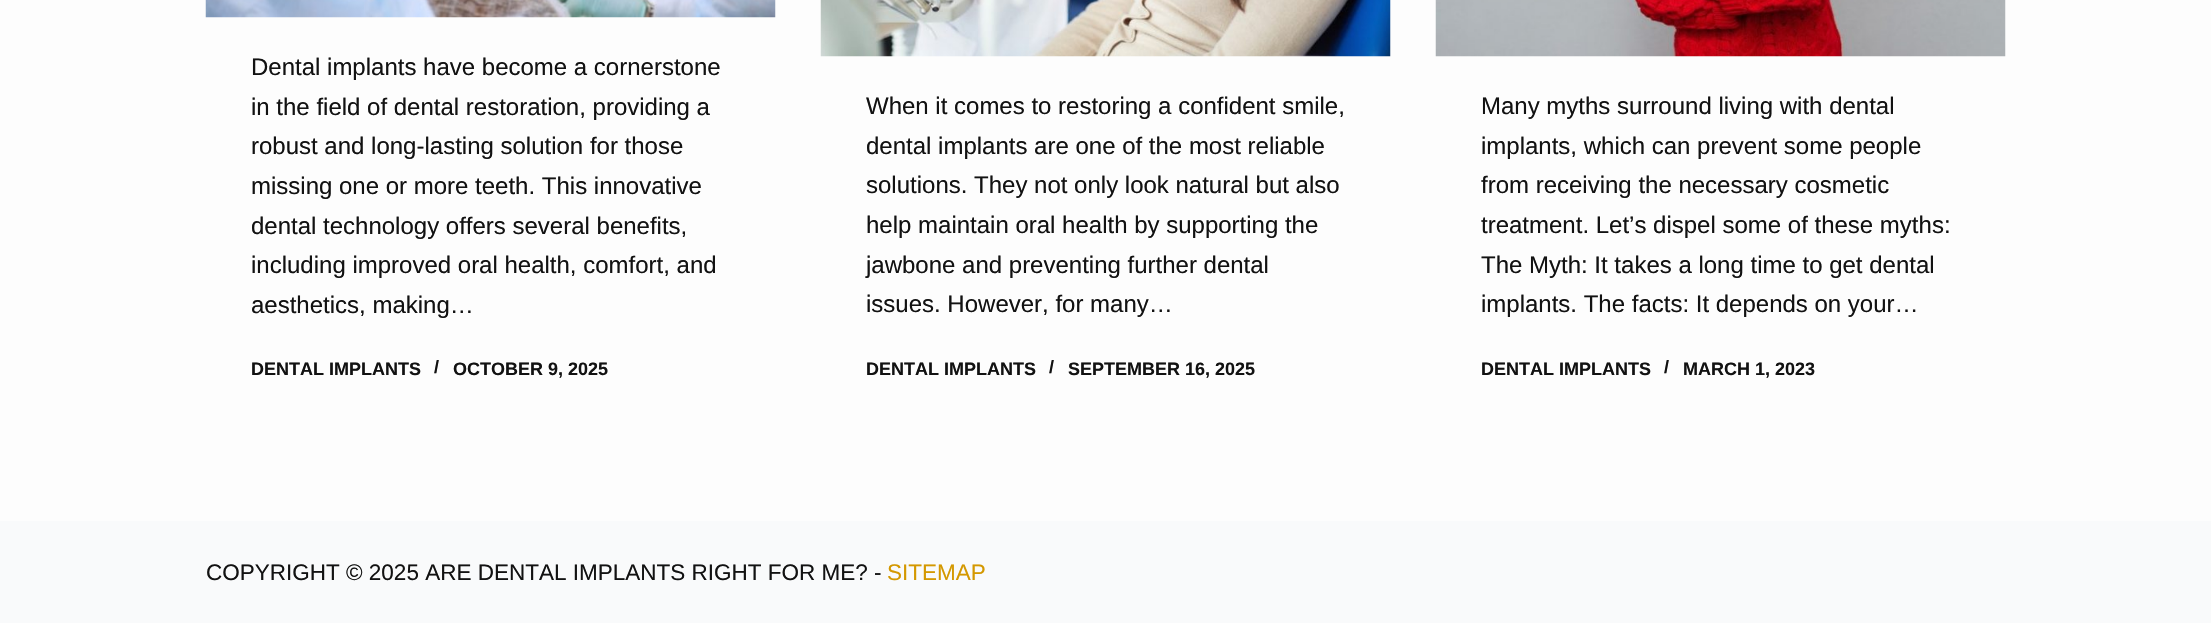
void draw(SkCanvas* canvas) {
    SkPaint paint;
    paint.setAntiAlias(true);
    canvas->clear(0xFFFDFDFD);
    canvas->drawImageRect(SkImages::DeferredFromEncodedData(SkData::MakeFromFileName("img1.png")), SkRect::MakeXYWH(205, 0, 571, 18), SkSamplingOptions());
    SkFont font1(fontMgr->matchFamilyStyle("Liberation Sans", SkFontStyle::Normal()), 24);
    font1.setSubpixel(true);
    paint.setColor(0xFF121212);
    canvas->drawString("Dental implants have become a cornerstone", 251, 75, font1, paint);
    canvas->drawString("in the field of dental restoration, providing a", 251, 115, font1, paint);
    canvas->drawString("robust and long-lasting solution for those", 251, 154, font1, paint);
    canvas->drawString("missing one or more teeth. This innovative", 251, 194, font1, paint);
    canvas->drawString("dental technology offers several benefits,", 251, 234, font1, paint);
    canvas->drawString("including improved oral health, comfort, and", 251, 273, font1, paint);
    canvas->drawString("aesthetics, making…", 251, 313, font1, paint);
    SkFont font2(fontMgr->matchFamilyStyle("Liberation Sans", SkFontStyle::Bold()), 18);
    font2.setSubpixel(true);
    canvas->drawString("DENTAL IMPLANTS", 251, 375, font2, paint);
    canvas->drawString("/", 434, 373, font2, paint);
    canvas->drawString("OCTOBER 9, 2025", 453, 375, font2, paint);
    canvas->drawImageRect(SkImages::DeferredFromEncodedData(SkData::MakeFromFileName("img2.png")), SkRect::MakeXYWH(820, 0, 571, 57), SkSamplingOptions());
    canvas->drawString("When it comes to restoring a confident smile,", 866, 114, font1, paint);
    canvas->drawString("dental implants are one of the most reliable", 866, 154, font1, paint);
    canvas->drawString("solutions. They not only look natural but also", 866, 193, font1, paint);
    canvas->drawString("help maintain oral health by supporting the", 866, 233, font1, paint);
    canvas->drawString("jawbone and preventing further dental", 866, 273, font1, paint);
    canvas->drawString("issues. However, for many…", 866, 312, font1, paint);
    canvas->drawString("DENTAL IMPLANTS", 866, 375, font2, paint);
    canvas->drawString("/", 1049, 373, font2, paint);
    canvas->drawString("SEPTEMBER 16, 2025", 1068, 375, font2, paint);
    canvas->drawImageRect(SkImages::DeferredFromEncodedData(SkData::MakeFromFileName("img3.png")), SkRect::MakeXYWH(1435, 0, 571, 57), SkSamplingOptions());
    canvas->drawString("Many myths surround living with dental", 1481, 114, font1, paint);
    canvas->drawString("implants, which can prevent some people", 1481, 154, font1, paint);
    canvas->drawString("from receiving the necessary cosmetic", 1481, 193, font1, paint);
    canvas->drawString("treatment. Let’s dispel some of these myths:", 1481, 233, font1, paint);
    canvas->drawString("The Myth: It takes a long time to get dental", 1481, 273, font1, paint);
    canvas->drawString("implants. The facts: It depends on your…", 1481, 312, font1, paint);
    canvas->drawString("DENTAL IMPLANTS", 1481, 375, font2, paint);
    canvas->drawString("/", 1664, 373, font2, paint);
    canvas->drawString("MARCH 1, 2023", 1683, 375, font2, paint);
    paint.setColor(0xFFF9FAFB);
    canvas->drawRect(SkRect::MakeXYWH(0, 521, 2211, 102), paint);
    SkFont font3(fontMgr->matchFamilyStyle("Liberation Sans", SkFontStyle::Normal()), 22.5f);
    font3.setSubpixel(true);
    paint.setColor(0xFF121212);
    canvas->drawString("COPYRIGHT © 2025 ARE DENTAL IMPLANTS RIGHT FOR ME? -", 206, 580, font3, paint);
    paint.setColor(0xFFD49800);
    canvas->drawString("SITEMAP", 887, 580, font3, paint);
}
